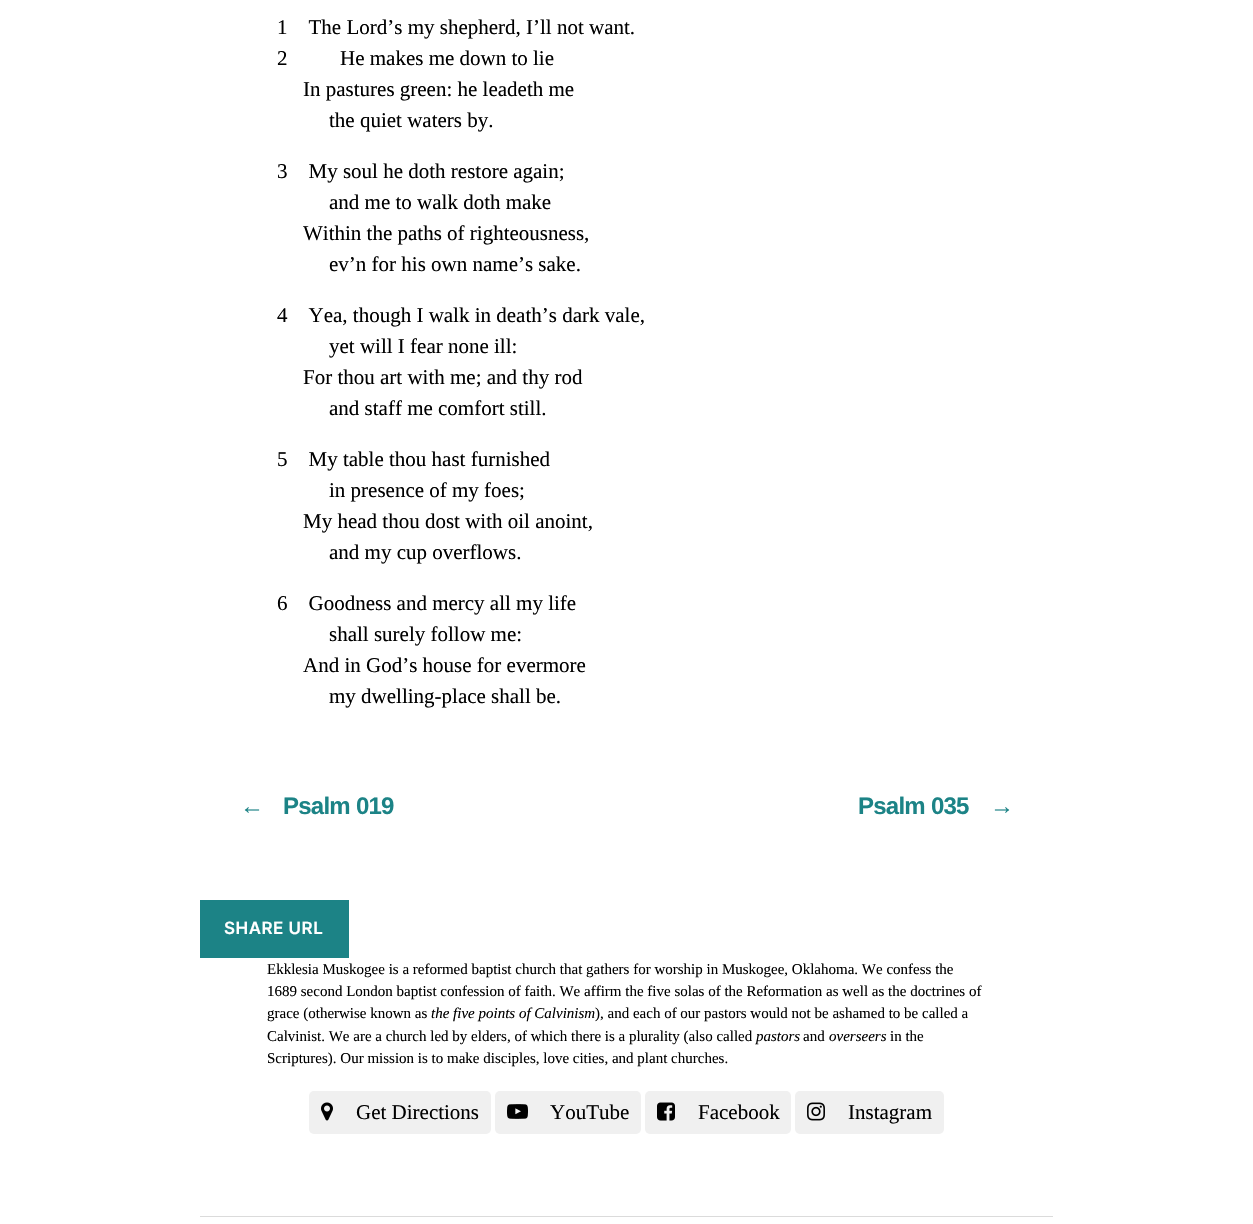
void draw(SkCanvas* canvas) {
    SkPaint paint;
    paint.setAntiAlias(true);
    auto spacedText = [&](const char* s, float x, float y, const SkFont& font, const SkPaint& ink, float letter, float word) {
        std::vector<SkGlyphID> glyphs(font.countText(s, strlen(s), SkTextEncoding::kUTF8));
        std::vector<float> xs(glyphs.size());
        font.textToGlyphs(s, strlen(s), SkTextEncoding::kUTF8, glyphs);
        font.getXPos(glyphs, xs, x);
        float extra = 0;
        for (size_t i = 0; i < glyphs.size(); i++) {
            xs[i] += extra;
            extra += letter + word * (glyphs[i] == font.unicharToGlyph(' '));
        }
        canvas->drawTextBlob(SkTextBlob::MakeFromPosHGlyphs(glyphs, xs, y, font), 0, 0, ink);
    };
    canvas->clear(0xFFFFFFFF);
    SkFont font1(fontMgr->matchFamilyStyle("Liberation Serif", SkFontStyle::Normal()), 21);
    font1.setSubpixel(true);
    paint.setColor(0xFF000000);
    canvas->drawString("1    The Lord’s my shepherd, I’ll not want.", 277, 34, font1, paint);
    canvas->drawString("2          He makes me down to lie", 277, 65, font1, paint);
    canvas->drawString("In pastures green: he leadeth me", 303, 96, font1, paint);
    canvas->drawString("the quiet waters by.", 329, 127, font1, paint);
    canvas->drawString("3    My soul he doth restore again;", 277, 178, font1, paint);
    canvas->drawString("and me to walk doth make", 329, 209, font1, paint);
    canvas->drawString("Within the paths of righteousness,", 303, 240, font1, paint);
    canvas->drawString("ev’n for his own name’s sake.", 329, 271, font1, paint);
    canvas->drawString("4    Yea, though I walk in death’s dark vale,", 277, 322, font1, paint);
    canvas->drawString("yet will I fear none ill:", 329, 353, font1, paint);
    canvas->drawString("For thou art with me; and thy rod", 303, 384, font1, paint);
    canvas->drawString("and staff me comfort still.", 329, 415, font1, paint);
    canvas->drawString("5    My table thou hast furnished", 277, 466, font1, paint);
    canvas->drawString("in presence of my foes;", 329, 497, font1, paint);
    canvas->drawString("My head thou dost with oil anoint,", 303, 528, font1, paint);
    canvas->drawString("and my cup overflows.", 329, 559, font1, paint);
    canvas->drawString("6    Goodness and mercy all my life", 277, 610, font1, paint);
    canvas->drawString("shall surely follow me:", 329, 641, font1, paint);
    canvas->drawString("And in God’s house for evermore", 303, 672, font1, paint);
    canvas->drawString("my dwelling-place shall be.", 329, 703, font1, paint);
    SkFont font2(fontMgr->matchFamilyStyle("Liberation Sans", SkFontStyle::Bold()), 24);
    font2.setSubpixel(true);
    paint.setColor(0xFF1C8386);
    spacedText("←", 240, 814, font2, paint, -0.75f, 0);
    spacedText("Psalm 019", 283, 814, font2, paint, -0.75f, 0);
    spacedText("Psalm 035", 858, 814, font2, paint, -0.75f, 0);
    spacedText("→", 990, 814, font2, paint, -0.75f, 0);
    canvas->drawRect(SkRect::MakeXYWH(200, 900, 149, 58), paint);
    SkFont font3(fontMgr->matchFamilyStyle("Inter", SkFontStyle(600, SkFontStyle::kNormal_Width, SkFontStyle::kUpright_Slant)), 17);
    font3.setSubpixel(true);
    paint.setColor(0xFFFFFFFF);
    spacedText("SHARE URL", 224, 934, font3, paint, 0.5f, 0);
    SkFont font4(fontMgr->matchFamilyStyle("Liberation Serif", SkFontStyle::Normal()), 15);
    font4.setSubpixel(true);
    paint.setColor(0xFF000000);
    canvas->drawString("Ekklesia Muskogee is a reformed baptist church that gathers for worship in Muskogee, Oklahoma. We confess the", 267, 974, font4, paint);
    canvas->drawString("1689 second London baptist confession of faith. We affirm the five solas of the Reformation as well as the doctrines of", 267, 996, font4, paint);
    canvas->drawString("grace (otherwise known as", 267, 1018, font4, paint);
    SkFont font5(fontMgr->matchFamilyStyle("Liberation Serif", SkFontStyle::Italic()), 15);
    font5.setSubpixel(true);
    canvas->drawString("the five points of Calvinism", 431, 1018, font5, paint);
    canvas->drawString("), and each of our pastors would not be ashamed to be called a", 595, 1018, font4, paint);
    canvas->drawString("Calvinist. We are a church led by elders, of which there is a plurality (also called", 267, 1041, font4, paint);
    canvas->drawString("pastors", 756, 1041, font5, paint);
    canvas->drawString("and", 803, 1041, font4, paint);
    canvas->drawString("overseers", 829, 1041, font5, paint);
    canvas->drawString("in the", 890, 1041, font4, paint);
    canvas->drawString("Scriptures). Our mission is to make disciples, love cities, and plant churches.", 267, 1063, font4, paint);
    paint.setColor(0xFFF0F0F0);
    canvas->drawRoundRect(SkRect::MakeXYWH(309, 1091, 182, 43), 5, 5, paint);
    canvas->drawImageRect(SkImages::DeferredFromEncodedData(SkData::MakeFromFileName("img1.png")), SkRect::MakeXYWH(321, 1102, 12, 19), SkSamplingOptions());
    paint.setColor(0xFF000000);
    canvas->drawString("Get Directions", 356, 1119, font1, paint);
    paint.setColor(0xFFF0F0F0);
    canvas->drawRoundRect(SkRect::MakeXYWH(495, 1091, 146, 43), 5, 5, paint);
    canvas->drawImageRect(SkImages::DeferredFromEncodedData(SkData::MakeFromFileName("img2.png")), SkRect::MakeXYWH(507, 1104, 21, 15), SkSamplingOptions());
    paint.setColor(0xFF000000);
    canvas->drawString("YouTube", 550, 1119, font1, paint);
    paint.setColor(0xFFF0F0F0);
    canvas->drawRoundRect(SkRect::MakeXYWH(645, 1091, 146, 43), 5, 5, paint);
    canvas->drawImageRect(SkImages::DeferredFromEncodedData(SkData::MakeFromFileName("img3.png")), SkRect::MakeXYWH(657, 1102, 18, 19), SkSamplingOptions());
    paint.setColor(0xFF000000);
    canvas->drawString("Facebook", 698, 1119, font1, paint);
    paint.setColor(0xFFF0F0F0);
    canvas->drawRoundRect(SkRect::MakeXYWH(795, 1091, 149, 43), 5, 5, paint);
    canvas->drawImageRect(SkImages::DeferredFromEncodedData(SkData::MakeFromFileName("img4.png")), SkRect::MakeXYWH(807, 1102, 18, 19), SkSamplingOptions());
    paint.setColor(0xFF000000);
    canvas->drawString("Instagram", 848, 1119, font1, paint);
    paint.setColor(0xFFDBDBDB);
    canvas->drawRect(SkRect::MakeXYWH(200, 1216, 853, 1), paint);
}
